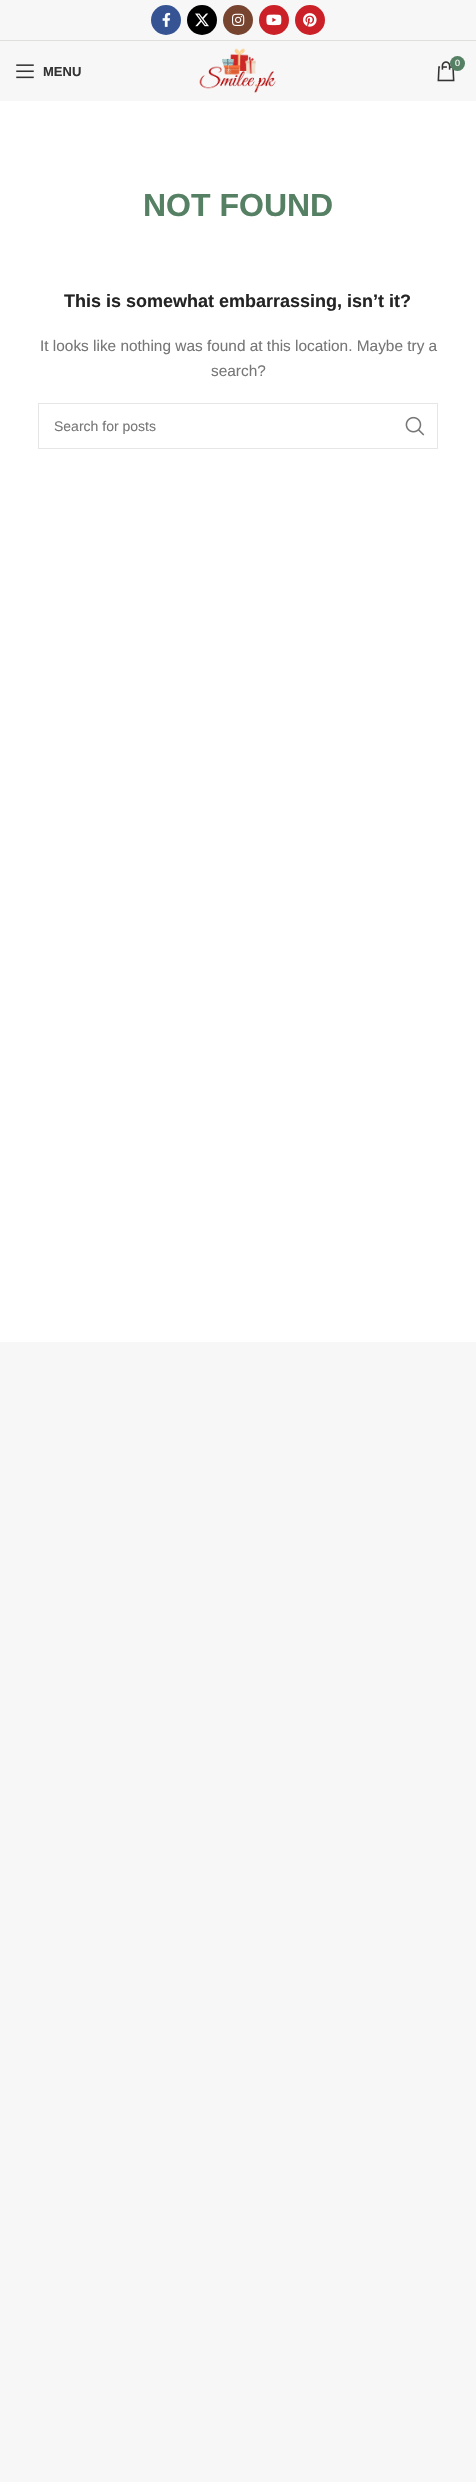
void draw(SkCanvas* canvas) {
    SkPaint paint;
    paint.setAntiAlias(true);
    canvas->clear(0xFFFFFFFF);
    paint.setColor(0xFFF7F7F7);
    canvas->drawRect(SkRect::MakeXYWH(0, 0, 476, 40), paint);
    paint.setColor(0xFFDFDFDE);
    canvas->drawRect(SkRect::MakeXYWH(0, 40, 476, 1), paint);
    paint.setColor(0xFF365493);
    canvas->drawCircle(166, 20, 15, paint);
    canvas->drawImageRect(SkImages::DeferredFromEncodedData(SkData::MakeFromFileName("img1.png")), SkRect::MakeXYWH(162, 12, 9, 15), SkSamplingOptions());
    paint.setColor(0xFF000000);
    canvas->drawCircle(202, 20, 15, paint);
    canvas->drawImageRect(SkImages::DeferredFromEncodedData(SkData::MakeFromFileName("img2.png")), SkRect::MakeXYWH(195, 13, 14, 14), SkSamplingOptions());
    paint.setColor(0xFF774430);
    canvas->drawCircle(238, 20, 15, paint);
    canvas->drawImageRect(SkImages::DeferredFromEncodedData(SkData::MakeFromFileName("img3.png")), SkRect::MakeXYWH(232, 13, 13, 13), SkSamplingOptions());
    paint.setColor(0xFFCB2027);
    canvas->drawCircle(274, 20, 15, paint);
    canvas->drawImageRect(SkImages::DeferredFromEncodedData(SkData::MakeFromFileName("img4.png")), SkRect::MakeXYWH(266, 14, 16, 12), SkSamplingOptions());
    canvas->drawCircle(310, 20, 15, paint);
    canvas->drawImageRect(SkImages::DeferredFromEncodedData(SkData::MakeFromFileName("img5.png")), SkRect::MakeXYWH(303, 13, 14, 14), SkSamplingOptions());
    paint.setColor(0xFFF7F7F7);
    canvas->drawRect(SkRect::MakeXYWH(0, 41, 476, 60), paint);
    canvas->drawImageRect(SkImages::DeferredFromEncodedData(SkData::MakeFromFileName("img6.png")), SkRect::MakeXYWH(199, 48, 77, 45), SkSamplingOptions());
    canvas->drawImageRect(SkImages::DeferredFromEncodedData(SkData::MakeFromFileName("img7.png")), SkRect::MakeXYWH(437, 61, 18, 21), SkSamplingOptions());
    paint.setColor(0xFF558063);
    canvas->drawCircle(457.5f, 63.5f, 7.5f, paint);
    SkFont font1(fontMgr->matchFamilyStyle("Liberation Sans", SkFontStyle::Normal()), 9);
    font1.setSubpixel(true);
    paint.setColor(0xFFFFFFFF);
    canvas->drawString("0", 455, 66, font1, paint);
    canvas->drawImageRect(SkImages::DeferredFromEncodedData(SkData::MakeFromFileName("img8.png")), SkRect::MakeXYWH(16, 64, 18, 15), SkSamplingOptions());
    SkFont font2(fontMgr->matchFamilyStyle("Liberation Sans", SkFontStyle::Bold()), 13);
    font2.setSubpixel(true);
    paint.setColor(0xFF333333);
    canvas->drawString("MENU", 43, 76, font2, paint);
    SkFont font3(fontMgr->matchFamilyStyle("Liberation Sans", SkFontStyle::Bold()), 32);
    font3.setSubpixel(true);
    paint.setColor(0xFF558063);
    canvas->drawString("NOT FOUND", 143, 216, font3, paint);
    SkFont font4(fontMgr->matchFamilyStyle("Liberation Sans", SkFontStyle::Bold()), 18);
    font4.setSubpixel(true);
    paint.setColor(0xFF242424);
    canvas->drawString("This is somewhat embarrassing, isn’t it?", 64, 307, font4, paint);
    SkFont font5(fontMgr->matchFamilyStyle("Liberation Sans", SkFontStyle::Normal()), 15.4f);
    font5.setSubpixel(true);
    paint.setColor(0xFF777777);
    canvas->drawString("It looks like nothing was found at this location. Maybe try a", 40, 351, font5, paint);
    canvas->drawString("search?", 211, 376, font5, paint);
    paint.setStyle(SkPaint::kStroke_Style);
    paint.setStrokeWidth(1);
    paint.setColor(0xFFE6E6E6);
    canvas->drawRect(SkRect::MakeXYWH(38.5f, 403.5f, 399, 45), paint);
    SkFont font6(fontMgr->matchFamilyStyle("Liberation Sans", SkFontStyle::Normal()), 14);
    font6.setSubpixel(true);
    paint.setStyle(SkPaint::kFill_Style);
    paint.setColor(0xFF777777);
    canvas->drawString("Search for posts", 54, 431, font6, paint);
    canvas->drawImageRect(SkImages::DeferredFromEncodedData(SkData::MakeFromFileName("img9.png")), SkRect::MakeXYWH(405, 416, 20, 20), SkSamplingOptions());
    paint.setColor(0xFFF7F7F7);
    canvas->drawRect(SkRect::MakeXYWH(0, 1342, 476, 1140), paint);
}
